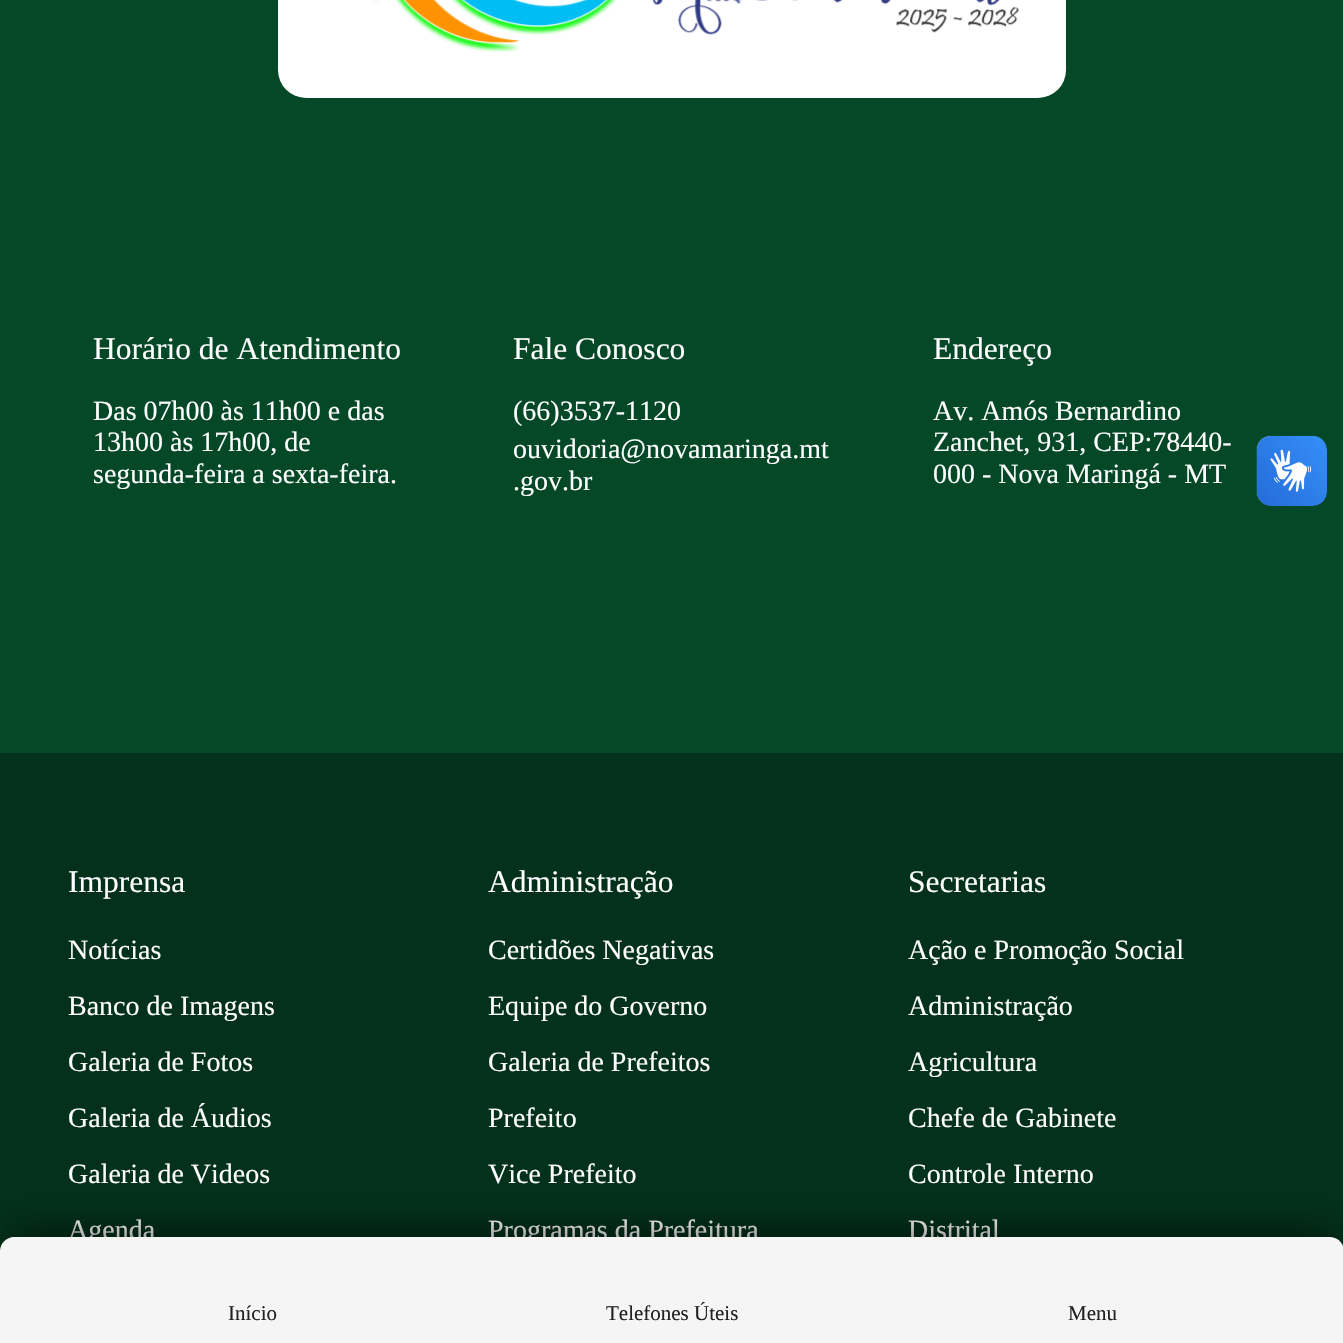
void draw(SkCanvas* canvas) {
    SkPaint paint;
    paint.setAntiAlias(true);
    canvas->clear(0xFF03311B);
    paint.setColor(0xFF044827);
    canvas->drawRect(SkRect::MakeXYWH(0, 0, 1343, 753), paint);
    paint.setColor(0xFFFFFFFF);
    canvas->drawRoundRect(SkRect::MakeXYWH(278, -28, 788, 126), 28, 28, paint);
    canvas->drawImageRect(SkImages::DeferredFromEncodedData(SkData::MakeFromFileName("img1.png")), SkRect::MakeXYWH(372, 0, 648, 52), SkSamplingOptions());
    SkFont font1(fontMgr->matchFamilyStyle("Liberation Serif", SkFontStyle::Normal()), 31.5f);
    font1.setSubpixel(true);
    canvas->drawString("Horário de Atendimento", 93, 359, font1, paint);
    SkFont font2(fontMgr->matchFamilyStyle("Liberation Serif", SkFontStyle::Normal()), 28);
    font2.setSubpixel(true);
    canvas->drawString("Das 07h00 às 11h00 e das", 93, 420, font2, paint);
    canvas->drawString("13h00 às 17h00, de", 93, 451, font2, paint);
    canvas->drawString("segunda-feira a sexta-feira.", 93, 483, font2, paint);
    canvas->drawString("Fale Conosco", 513, 359, font1, paint);
    canvas->drawString("(66)3537-1120", 513, 420, font2, paint);
    canvas->drawString("ouvidoria@novamaringa.mt", 513, 458, font2, paint);
    canvas->drawString(".gov.br", 513, 490, font2, paint);
    canvas->drawString("Endereço", 933, 359, font1, paint);
    canvas->drawString("Av. Amós Bernardino", 933, 420, font2, paint);
    canvas->drawString("Zanchet, 931, CEP:78440-", 933, 451, font2, paint);
    canvas->drawString("000 - Nova Maringá - MT", 933, 483, font2, paint);
    canvas->drawString("Imprensa", 68, 892, font1, paint);
    canvas->drawString("Notícias", 68, 959, font2, paint);
    canvas->drawString("Banco de Imagens", 68, 1015, font2, paint);
    canvas->drawString("Galeria de Fotos", 68, 1071, font2, paint);
    canvas->drawString("Galeria de Áudios", 68, 1127, font2, paint);
    canvas->drawString("Galeria de Videos", 68, 1183, font2, paint);
    canvas->drawString("Agenda", 68, 1239, font2, paint);
    canvas->drawString("Administração", 488, 892, font1, paint);
    canvas->drawString("Certidões Negativas", 488, 959, font2, paint);
    canvas->drawString("Equipe do Governo", 488, 1015, font2, paint);
    canvas->drawString("Galeria de Prefeitos", 488, 1071, font2, paint);
    canvas->drawString("Prefeito", 488, 1127, font2, paint);
    canvas->drawString("Vice Prefeito", 488, 1183, font2, paint);
    canvas->drawString("Programas da Prefeitura", 488, 1239, font2, paint);
    canvas->drawString("Secretarias", 908, 892, font1, paint);
    canvas->drawString("Ação e Promoção Social", 908, 959, font2, paint);
    canvas->drawString("Administração", 908, 1015, font2, paint);
    canvas->drawString("Agricultura", 908, 1071, font2, paint);
    canvas->drawString("Chefe de Gabinete", 908, 1127, font2, paint);
    canvas->drawString("Controle Interno", 908, 1183, font2, paint);
    canvas->drawString("Distrital", 908, 1239, font2, paint);
    canvas->drawImageRect(SkImages::DeferredFromEncodedData(SkData::MakeFromFileName("img2.png")), SkRect::MakeXYWH(1256, 435, 71, 71), SkSamplingOptions());
    canvas->drawImageRect(SkImages::DeferredFromEncodedData(SkData::MakeFromFileName("img3.png")), SkRect::MakeXYWH(1257, 436, 70, 70), SkSamplingOptions());
    paint.setColor(0x7D000000);
    paint.setMaskFilter(SkMaskFilter::MakeBlur(kNormal_SkBlurStyle, 17.5f));
    canvas->drawRoundRect(SkRect::MakeXYWH(12, 1229, 1323, 85), 4, 4, paint);
    paint.setMaskFilter(nullptr);
    paint.setColor(0xFFF5F5F5);
    canvas->drawPath(SkPathBuilder().moveTo(14, 1237).lineTo(1330, 1237).cubicTo(1337.5f, 1237, 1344, 1243.5f, 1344, 1251).lineTo(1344, 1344).lineTo(0, 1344).lineTo(0, 1251).cubicTo(0, 1243.5f, 6.5f, 1237, 14, 1237).close().detach(), paint);
    SkFont font3(fontMgr->matchFamilyStyle("Liberation Serif", SkFontStyle::Normal()), 21);
    font3.setSubpixel(true);
    paint.setColor(0xFF212121);
    canvas->drawString("Início", 228, 1320, font3, paint);
    canvas->drawString("Telefones Úteis", 606, 1320, font3, paint);
    canvas->drawString("Menu", 1068, 1320, font3, paint);
}
